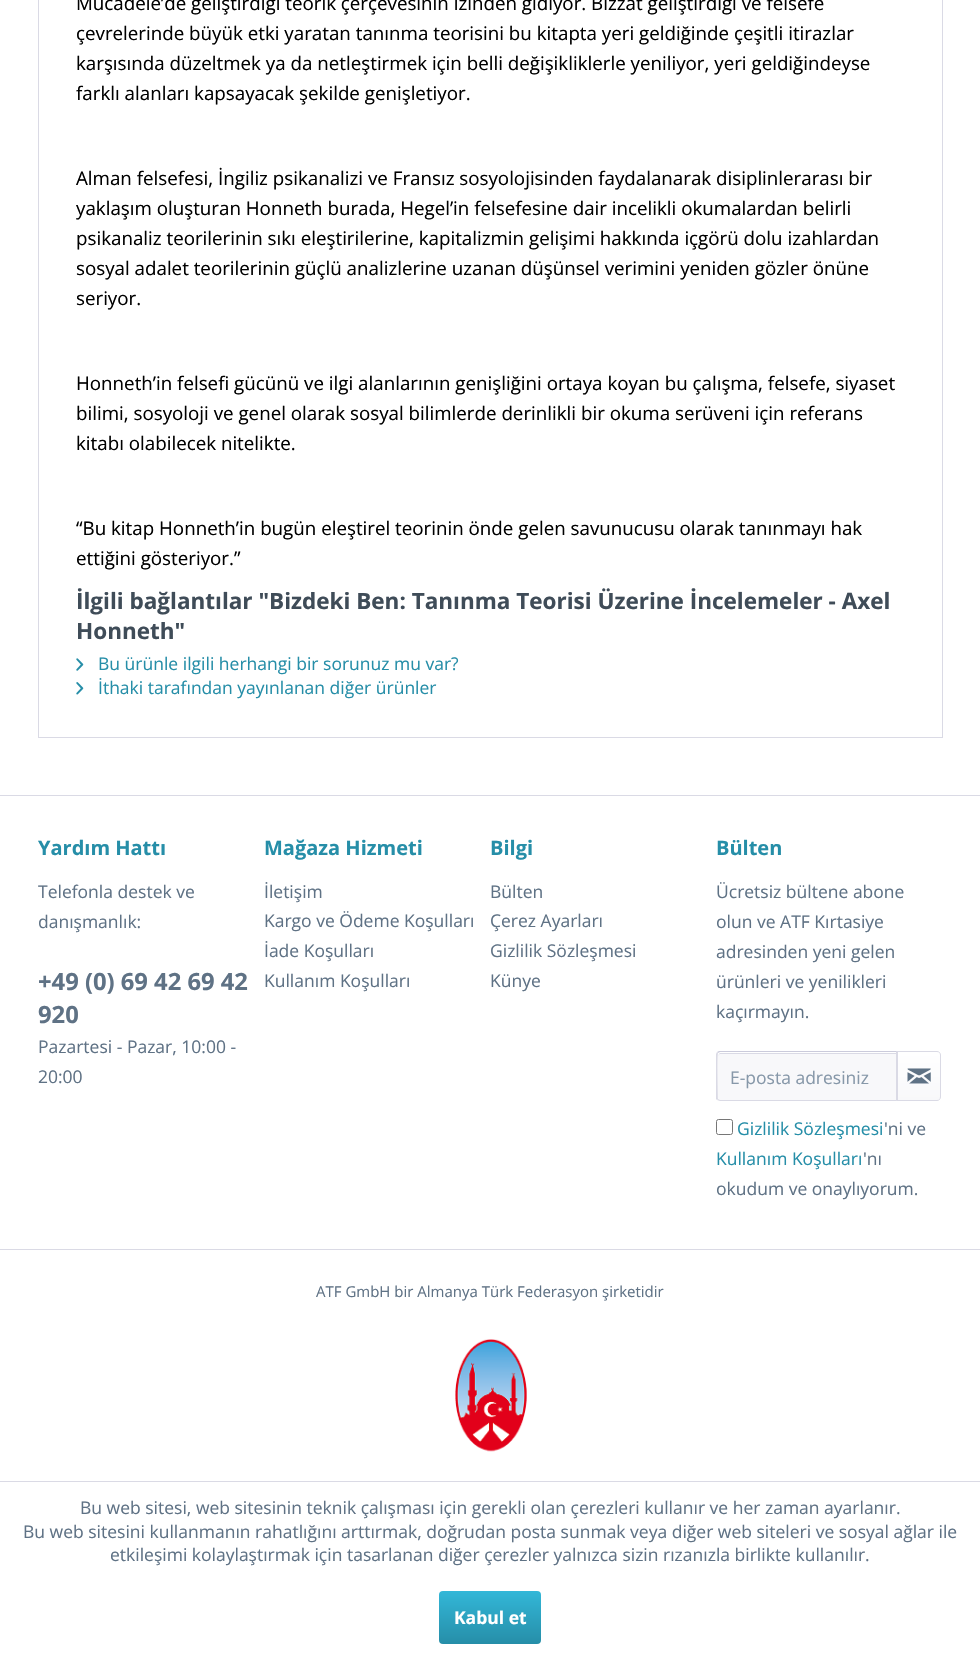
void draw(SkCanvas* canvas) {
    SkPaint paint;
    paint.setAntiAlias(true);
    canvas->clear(0xFFFFFFFF);
    paint.setStyle(SkPaint::kStroke_Style);
    paint.setStrokeWidth(1);
    paint.setColor(0xFFDADAE5);
    canvas->drawRect(SkRect::MakeXYWH(38.5f, -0.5f, 904, 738), paint);
    SkFont font1(fontMgr->matchFamilyStyle("Open Sans", SkFontStyle::Normal()), 18.75f);
    font1.setSubpixel(true);
    paint.setStyle(SkPaint::kFill_Style);
    paint.setColor(0xFF000000);
    canvas->drawString("Mücadele’de geliştirdiği teorik çerçevesinin izinden gidiyor. Bizzat geliştirdiği ve felsefe", 76, 10, font1, paint);
    canvas->drawString("çevrelerinde büyük etki yaratan tanınma teorisini bu kitapta yeri geldiğinde çeşitli itirazlar", 76, 40, font1, paint);
    canvas->drawString("karşısında düzeltmek ya da netleştirmek için belli değişikliklerle yeniliyor, yeri geldiğindeyse", 76, 70, font1, paint);
    canvas->drawString("farklı alanları kapsayacak şekilde genişletiyor.", 76, 100, font1, paint);
    canvas->drawString("Alman felsefesi, İngiliz psikanalizi ve Fransız sosyolojisinden faydalanarak disiplinlerarası bir", 76, 185, font1, paint);
    canvas->drawString("yaklaşım oluşturan Honneth burada, Hegel’in felsefesine dair incelikli okumalardan belirli", 76, 215, font1, paint);
    canvas->drawString("psikanaliz teorilerinin sıkı eleştirilerine, kapitalizmin gelişimi hakkında içgörü dolu izahlardan", 76, 245, font1, paint);
    canvas->drawString("sosyal adalet teorilerinin güçlü analizlerine uzanan düşünsel verimini yeniden gözler önüne", 76, 275, font1, paint);
    canvas->drawString("seriyor.", 76, 305, font1, paint);
    canvas->drawString("Honneth’in felsefi gücünü ve ilgi alanlarının genişliğini ortaya koyan bu çalışma, felsefe, siyaset", 76, 390, font1, paint);
    canvas->drawString("bilimi, sosyoloji ve genel olarak sosyal bilimlerde derinlikli bir okuma serüveni için referans", 76, 420, font1, paint);
    canvas->drawString("kitabı olabilecek nitelikte.", 76, 450, font1, paint);
    canvas->drawString("“Bu kitap Honneth’in bugün eleştirel teorinin önde gelen savunucusu olarak tanınmayı hak", 76, 535, font1, paint);
    canvas->drawString("ettiğini gösteriyor.”", 76, 565, font1, paint);
    SkFont font2(fontMgr->matchFamilyStyle("Open Sans", SkFontStyle::Bold()), 22.5f);
    font2.setSubpixel(true);
    paint.setColor(0xFF3F4C58);
    canvas->drawString("İlgili bağlantılar \"Bizdeki Ben: Tanınma Teorisi Üzerine İncelemeler - Axel", 76, 609, font2, paint);
    canvas->drawString("Honneth\"", 76, 639, font2, paint);
    canvas->drawImageRect(SkImages::DeferredFromEncodedData(SkData::MakeFromFileName("img1.png")), SkRect::MakeXYWH(76, 658, 8, 13), SkSamplingOptions());
    SkFont font3(fontMgr->matchFamilyStyle("Open Sans", SkFontStyle::Normal()), 17.5f);
    font3.setSubpixel(true);
    paint.setColor(0xFF268EA8);
    canvas->drawString("Bu ürünle ilgili herhangi bir sorunuz mu var?", 98, 670, font3, paint);
    canvas->drawImageRect(SkImages::DeferredFromEncodedData(SkData::MakeFromFileName("img2.png")), SkRect::MakeXYWH(76, 682, 8, 13), SkSamplingOptions());
    canvas->drawString("İthaki tarafından yayınlanan diğer ürünler", 98, 694, font3, paint);
    paint.setColor(0xFFDADAE5);
    canvas->drawRect(SkRect::MakeXYWH(0, 795, 980, 1), paint);
    canvas->drawRect(SkRect::MakeXYWH(0, 1249, 980, 1), paint);
    SkFont font4(fontMgr->matchFamilyStyle("Open Sans", SkFontStyle::Bold()), 20);
    font4.setSubpixel(true);
    paint.setColor(0xFF268EA8);
    canvas->drawString("Yardım Hattı", 38, 855, font4, paint);
    paint.setColor(0xFF5F7285);
    canvas->drawString("Telefonla destek ve", 38, 898, font3, paint);
    canvas->drawString("danışmanlık:", 38, 928, font3, paint);
    SkFont font5(fontMgr->matchFamilyStyle("Open Sans", SkFontStyle::Bold()), 23.75f);
    font5.setSubpixel(true);
    canvas->drawString("+49 (0) 69 42 69 42", 38, 990, font5, paint);
    canvas->drawString("920", 38, 1023, font5, paint);
    canvas->drawString("Pazartesi - Pazar, 10:00 -", 38, 1053, font3, paint);
    canvas->drawString("20:00", 38, 1083, font3, paint);
    paint.setColor(0xFF268EA8);
    canvas->drawString("Mağaza Hizmeti", 264, 855, font4, paint);
    paint.setColor(0xFF5F7285);
    canvas->drawString("İletişim", 264, 898, font3, paint);
    canvas->drawString("Kargo ve Ödeme Koşulları", 264, 927, font3, paint);
    canvas->drawString("İade Koşulları", 264, 957, font3, paint);
    canvas->drawString("Kullanım Koşulları", 264, 987, font3, paint);
    paint.setColor(0xFF268EA8);
    canvas->drawString("Bilgi", 490, 855, font4, paint);
    paint.setColor(0xFF5F7285);
    canvas->drawString("Bülten", 490, 898, font3, paint);
    canvas->drawString("Çerez Ayarları", 490, 927, font3, paint);
    canvas->drawString("Gizlilik Sözleşmesi", 490, 957, font3, paint);
    canvas->drawString("Künye", 490, 987, font3, paint);
    paint.setColor(0xFF268EA8);
    canvas->drawString("Bülten", 716, 855, font4, paint);
    paint.setColor(0xFF5F7285);
    canvas->drawString("Ücretsiz bültene abone", 716, 898, font3, paint);
    canvas->drawString("olun ve ATF Kırtasiye", 716, 928, font3, paint);
    canvas->drawString("adresinden yeni gelen", 716, 958, font3, paint);
    canvas->drawString("ürünleri ve yenilikleri", 716, 988, font3, paint);
    canvas->drawString("kaçırmayın.", 716, 1018, font3, paint);
    paint.setColor(0xFFF8F8FA);
    canvas->drawPath(SkPathBuilder().moveTo(720.5f, 1053).lineTo(896, 1053).lineTo(896, 1100).lineTo(720.5f, 1100).cubicTo(719, 1100, 718, 1099, 718, 1097.5f).lineTo(718, 1055.5f).cubicTo(718, 1054, 719, 1053, 720.5f, 1053).close().detach(), paint);
    paint.setColor(0xFFDADAE5);
    canvas->drawPath(SkPathBuilder().moveTo(720, 1054).lineTo(896, 1054).lineTo(896, 1053).lineTo(720, 1053).lineTo(719, 1054).lineTo(718, 1056).cubicTo(718, 1055, 719, 1054, 720, 1054).close().detach(), paint);
    paint.setColor(0xFFCBCBDB);
    canvas->drawPath(SkPathBuilder().moveTo(720, 1052).lineTo(718, 1053).lineTo(717, 1052).lineTo(719, 1051).lineTo(898, 1051).lineTo(896, 1053).lineTo(896, 1052).close().detach(), paint);
    paint.setColor(0xFFDADAE5);
    canvas->drawPath(SkPathBuilder().moveTo(898, 1051).lineTo(898, 1101).lineTo(896, 1100).lineTo(896, 1053).close().detach(), paint);
    canvas->drawPath(SkPathBuilder().moveTo(897, 1101).lineTo(720, 1101).lineTo(717, 1100).lineTo(718, 1099).lineTo(720, 1100).lineTo(896, 1100).close().detach(), paint);
    canvas->drawPath(SkPathBuilder().moveTo(716, 1054).lineTo(717, 1052).lineTo(718, 1053).cubicTo(717, 1056, 718, 1098, 718, 1099).lineTo(717, 1100).lineTo(716, 1099).close().detach(), paint);
    paint.setColor(0xFF8798A9);
    canvas->drawString("E-posta adresiniz", 730, 1084, font3, paint);
    {
        const SkColor colors[] = {0xFFFFFFFF, 0xFFF8F8FA};
        const float stops[] = {0, 1};
        const SkPoint ends[] = {{919, 1053}, {919, 1100}};
        paint.setShader(SkGradientShader::MakeLinear(ends, colors, stops, 2, SkTileMode::kClamp));
        paint.setAlpha(255);
    }
    canvas->drawPath(SkPathBuilder().moveTo(898, 1053).lineTo(937.5f, 1053).cubicTo(939, 1053, 940, 1054, 940, 1055.5f).lineTo(940, 1097.5f).cubicTo(940, 1099, 939, 1100, 937.5f, 1100).lineTo(898, 1100).close().detach(), paint);
    paint.setStyle(SkPaint::kStroke_Style);
    paint.setShader(nullptr);
    paint.setColor(0xFFDADAE5);
    canvas->drawPath(SkPathBuilder().moveTo(896.5f, 1051.5f).lineTo(937, 1051.5f).cubicTo(939, 1051.5f, 940.5f, 1053, 940.5f, 1055).lineTo(940.5f, 1097).cubicTo(940.5f, 1099, 939, 1100.5f, 937, 1100.5f).lineTo(896.5f, 1100.5f).close().detach(), paint);
    canvas->drawImageRect(SkImages::DeferredFromEncodedData(SkData::MakeFromFileName("img3.png")), SkRect::MakeXYWH(907, 1068, 24, 16), SkSamplingOptions());
    paint.setColor(0xFF767676);
    canvas->drawRoundRect(SkRect::MakeXYWH(716.5f, 1119.5f, 16, 15), 2, 2, paint);
    paint.setStyle(SkPaint::kFill_Style);
    paint.setColor(0xFF268EA8);
    canvas->drawString("Gizlilik Sözleşmesi", 737, 1135, font3, paint);
    paint.setColor(0xFF5F7285);
    canvas->drawString("'ni ve", 884, 1135, font3, paint);
    paint.setColor(0xFF268EA8);
    canvas->drawString("Kullanım Koşulları", 716, 1165, font3, paint);
    paint.setColor(0xFF5F7285);
    canvas->drawString("'nı", 863, 1165, font3, paint);
    canvas->drawString("okudum ve onaylıyorum.", 716, 1195, font3, paint);
    SkFont font6(fontMgr->matchFamilyStyle("Open Sans", SkFontStyle::Normal()), 15);
    font6.setSubpixel(true);
    canvas->drawString("ATF GmbH bir Almanya Türk Federasyon şirketidir", 316, 1297, font6, paint);
    canvas->drawImageRect(SkImages::DeferredFromEncodedData(SkData::MakeFromFileName("img4.png")), SkRect::MakeXYWH(455, 1339, 72, 113), SkSamplingOptions());
    paint.setColor(0xFFDADAE5);
    canvas->drawRect(SkRect::MakeXYWH(0, 1481, 980, 1), paint);
    paint.setColor(0xFF5F7285);
    canvas->drawString("Bu web sitesi, web sitesinin teknik çalışması için gerekli olan çerezleri kullanır ve her zaman ayarlanır.", 80, 1514, font3, paint);
    canvas->drawString("Bu web sitesini kullanmanın rahatlığını arttırmak, doğrudan posta sunmak veya diğer web siteleri ve sosyal ağlar ile", 23, 1538, font3, paint);
    canvas->drawString("etkileşimi kolaylaştırmak için tasarlanan diğer çerezler yalnızca sizin rızanızla birlikte kullanılır.", 110, 1561, font3, paint);
    {
        const SkColor colors[] = {0xFF33B7D8, 0xFF268EA8};
        const float stops[] = {0, 1};
        const SkPoint ends[] = {{490, 1591}, {490, 1644}};
        paint.setShader(SkGradientShader::MakeLinear(ends, colors, stops, 2, SkTileMode::kClamp));
        paint.setAlpha(255);
    }
    canvas->drawRoundRect(SkRect::MakeXYWH(439, 1591, 102, 53), 4, 4, paint);
    SkFont font7(fontMgr->matchFamilyStyle("Open Sans", SkFontStyle::Bold()), 17.5f);
    font7.setSubpixel(true);
    paint.setShader(nullptr);
    paint.setColor(0xFFFFFFFF);
    canvas->drawString("Kabul et", 454, 1624, font7, paint);
}
